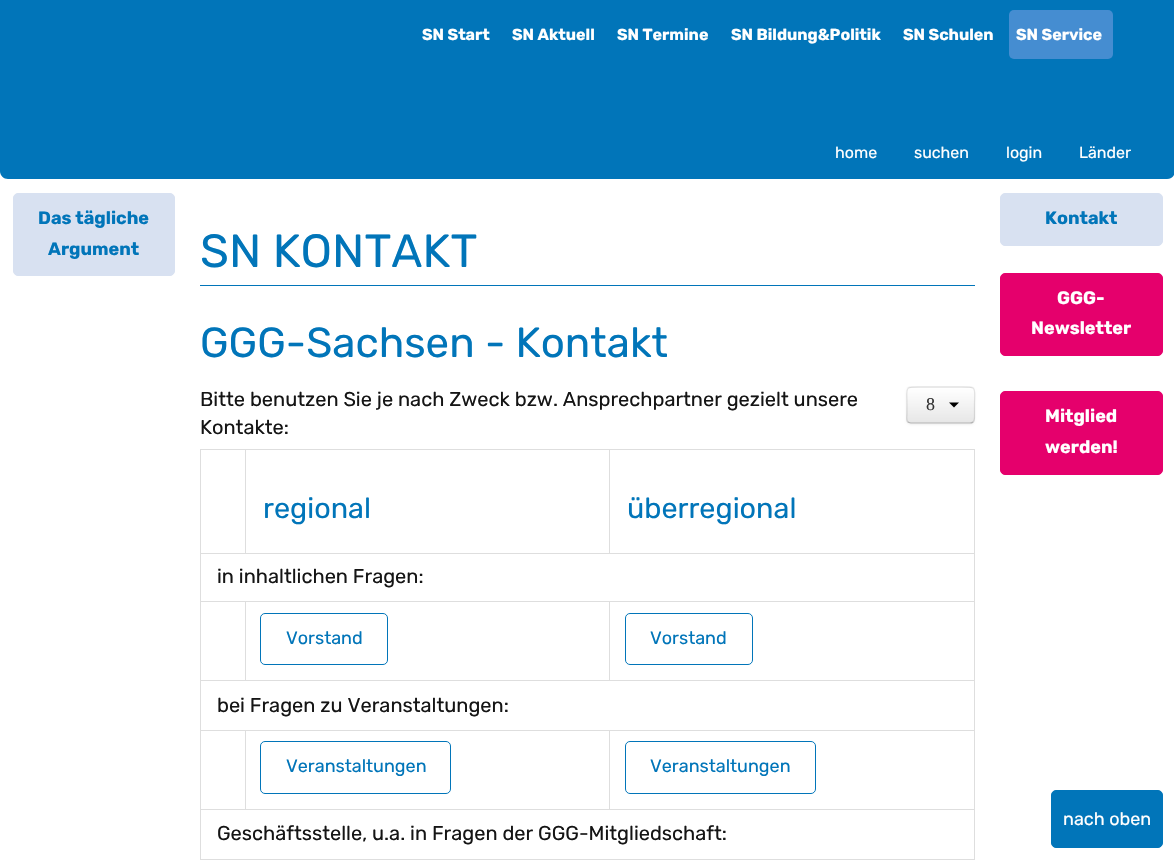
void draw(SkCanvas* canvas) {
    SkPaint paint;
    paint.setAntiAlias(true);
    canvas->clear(0xFFFFFFFF);
    paint.setColor(0xFF0175B9);
    canvas->drawRect(SkRect::MakeXYWH(0, 0, 1174, 133), paint);
    SkFont font1(fontMgr->matchFamilyStyle("Rubik", SkFontStyle::Bold()), 16);
    font1.setSubpixel(true);
    paint.setColor(0xFFFFFFFF);
    canvas->drawString("SN Start", 422, 40, font1, paint);
    canvas->drawString("SN Aktuell", 512, 40, font1, paint);
    canvas->drawString("SN Termine", 617, 40, font1, paint);
    canvas->drawString("SN Bildung&Politik", 731, 40, font1, paint);
    canvas->drawString("SN Schulen", 903, 40, font1, paint);
    paint.setColor(0xFF458DD1);
    canvas->drawRoundRect(SkRect::MakeXYWH(1009, 10, 104, 49), 5, 5, paint);
    paint.setColor(0xFFFFFFFF);
    canvas->drawString("SN Service", 1016, 40, font1, paint);
    paint.setColor(0xFF0175B9);
    canvas->drawPath(SkPathBuilder().moveTo(0, 133).lineTo(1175, 133).lineTo(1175, 171).cubicTo(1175, 175.5f, 1171.5f, 179, 1167, 179).lineTo(8, 179).cubicTo(3.5f, 179, 0, 175.5f, 0, 171).close().detach(), paint);
    SkFont font2(fontMgr->matchFamilyStyle("Rubik", SkFontStyle::Normal()), 16);
    font2.setSubpixel(true);
    paint.setColor(0xFFFFFFFF);
    canvas->drawString("home", 835, 158, font2, paint);
    canvas->drawString("suchen", 914, 158, font2, paint);
    canvas->drawString("login", 1006, 158, font2, paint);
    canvas->drawString("Länder", 1079, 158, font2, paint);
    paint.setColor(0xFFD8E1F1);
    canvas->drawRoundRect(SkRect::MakeXYWH(13.5f, 193.5f, 161, 82), 4.5f, 4.5f, paint);
    paint.setStyle(SkPaint::kStroke_Style);
    paint.setStrokeWidth(1);
    canvas->drawRoundRect(SkRect::MakeXYWH(13.5f, 193.5f, 161, 82), 4.5f, 4.5f, paint);
    SkFont font3(fontMgr->matchFamilyStyle("Rubik", SkFontStyle::Bold()), 18);
    font3.setSubpixel(true);
    paint.setStyle(SkPaint::kFill_Style);
    paint.setColor(0xFF0175B9);
    canvas->drawString("Das tägliche", 38, 224, font3, paint);
    canvas->drawString("Argument", 48, 255, font3, paint);
    canvas->drawRect(SkRect::MakeXYWH(200, 285, 775, 1), paint);
    SkFont font4(fontMgr->matchFamilyStyle("Rubik", SkFontStyle::Normal()), 46.5f);
    font4.setSubpixel(true);
    canvas->drawString("SN KONTAKT", 200, 267, font4, paint);
    SkFont font5(fontMgr->matchFamilyStyle("Rubik", SkFontStyle::Normal()), 42);
    font5.setSubpixel(true);
    canvas->drawString("GGG-Sachsen - Kontakt", 200, 357, font5, paint);
    SkFont font6(fontMgr->matchFamilyStyle("Rubik", SkFontStyle::Normal()), 20);
    font6.setSubpixel(true);
    paint.setColor(0xFF151515);
    canvas->drawString("Bitte benutzen Sie je nach Zweck bzw. Ansprechpartner gezielt unsere", 200, 406, font6, paint);
    canvas->drawString("Kontakte:", 200, 434, font6, paint);
    paint.setColor(0xFFDEDEDE);
    canvas->drawRect(SkRect::MakeXYWH(200, 449, 775, 1), paint);
    canvas->drawRect(SkRect::MakeXYWH(974, 449, 1, 411), paint);
    canvas->drawRect(SkRect::MakeXYWH(200, 449, 1, 411), paint);
    canvas->drawRect(SkRect::MakeXYWH(200, 553, 775, 1), paint);
    canvas->drawRect(SkRect::MakeXYWH(245, 449, 1, 105), paint);
    SkFont font7(fontMgr->matchFamilyStyle("Rubik", SkFontStyle::Normal()), 28.75f);
    font7.setSubpixel(true);
    paint.setColor(0xFF0175B9);
    canvas->drawString("regional", 263, 518, font7, paint);
    paint.setColor(0xFFDEDEDE);
    canvas->drawRect(SkRect::MakeXYWH(609, 449, 1, 105), paint);
    paint.setColor(0xFF0175B9);
    canvas->drawString("überregional", 627, 518, font7, paint);
    paint.setColor(0xFF151515);
    canvas->drawString("in inhaltlichen Fragen:", 217, 583, font6, paint);
    paint.setColor(0xFFDEDEDE);
    canvas->drawRect(SkRect::MakeXYWH(609, 601, 366, 1), paint);
    canvas->drawRect(SkRect::MakeXYWH(200, 680, 775, 1), paint);
    canvas->drawRect(SkRect::MakeXYWH(609, 601, 1, 80), paint);
    canvas->drawRect(SkRect::MakeXYWH(245, 601, 365, 1), paint);
    canvas->drawRect(SkRect::MakeXYWH(245, 601, 1, 80), paint);
    canvas->drawRect(SkRect::MakeXYWH(200, 601, 46, 1), paint);
    paint.setStyle(SkPaint::kStroke_Style);
    paint.setColor(0xFF0175B9);
    canvas->drawRoundRect(SkRect::MakeXYWH(260.5f, 613.5f, 127, 51), 4.5f, 4.5f, paint);
    SkFont font8(fontMgr->matchFamilyStyle("Rubik", SkFontStyle::Normal()), 18);
    font8.setSubpixel(true);
    paint.setStyle(SkPaint::kFill_Style);
    canvas->drawString("Vorstand", 286, 644, font8, paint);
    paint.setStyle(SkPaint::kStroke_Style);
    canvas->drawRoundRect(SkRect::MakeXYWH(625.5f, 613.5f, 127, 51), 4.5f, 4.5f, paint);
    paint.setStyle(SkPaint::kFill_Style);
    canvas->drawString("Vorstand", 650, 644, font8, paint);
    paint.setColor(0xFF151515);
    canvas->drawString("bei Fragen zu Veranstaltungen:", 217, 712, font6, paint);
    paint.setColor(0xFFDEDEDE);
    canvas->drawRect(SkRect::MakeXYWH(609, 730, 366, 1), paint);
    canvas->drawRect(SkRect::MakeXYWH(200, 809, 775, 1), paint);
    canvas->drawRect(SkRect::MakeXYWH(609, 730, 1, 80), paint);
    canvas->drawRect(SkRect::MakeXYWH(245, 730, 365, 1), paint);
    canvas->drawRect(SkRect::MakeXYWH(245, 730, 1, 80), paint);
    canvas->drawRect(SkRect::MakeXYWH(200, 730, 46, 1), paint);
    paint.setStyle(SkPaint::kStroke_Style);
    paint.setColor(0xFF0175B9);
    canvas->drawRoundRect(SkRect::MakeXYWH(260.5f, 741.5f, 190, 52), 4.5f, 4.5f, paint);
    paint.setStyle(SkPaint::kFill_Style);
    canvas->drawString("Veranstaltungen", 286, 772, font8, paint);
    paint.setStyle(SkPaint::kStroke_Style);
    canvas->drawRoundRect(SkRect::MakeXYWH(625.5f, 741.5f, 190, 52), 4.5f, 4.5f, paint);
    paint.setStyle(SkPaint::kFill_Style);
    canvas->drawString("Veranstaltungen", 650, 772, font8, paint);
    paint.setColor(0xFF151515);
    canvas->drawString("Geschäftsstelle, u.a. in Fragen der GGG-Mitgliedschaft:", 217, 840, font6, paint);
    paint.setColor(0xFFDEDEDE);
    canvas->drawRect(SkRect::MakeXYWH(200, 859, 775, 1), paint);
    paint.setColor(0x0D000000);
    paint.setMaskFilter(SkMaskFilter::MakeBlur(kNormal_SkBlurStyle, 1));
    canvas->drawRoundRect(SkRect::MakeXYWH(906, 388, 69, 37), 5, 5, paint);
    paint.setMaskFilter(nullptr);
    paint.setColor(0xFFF5F5F5);
    canvas->drawRoundRect(SkRect::MakeXYWH(906, 386, 69, 38), 5, 5, paint);
    canvas->save();
    canvas->clipPath(SkPathBuilder().moveTo(911, 386).lineTo(970, 386).cubicTo(973, 386, 975, 388, 975, 391).lineTo(975, 419).cubicTo(975, 422, 973, 424, 970, 424).lineTo(911, 424).cubicTo(908, 424, 906, 422, 906, 419).lineTo(906, 391).cubicTo(906, 388, 908, 386, 911, 386).close().detach(), true);
    {
        const SkColor colors[] = {0xFFFFFFFF, 0xFFE6E6E6};
        const float stops[] = {0, 1};
        const SkPoint ends[] = {{941, 388}, {941, 423}};
        paint.setShader(SkGradientShader::MakeLinear(ends, colors, stops, 2, SkTileMode::kClamp));
        paint.setAlpha(255);
    }
    canvas->drawRect(SkRect::MakeXYWH(906, 388, 69, 35), paint);
    canvas->restore();
    paint.setStyle(SkPaint::kStroke_Style);
    paint.setStrokeWidth(1.2f);
    paint.setShader(nullptr);
    paint.setColor(0xFFB3B3B3);
    canvas->drawPath(SkPathBuilder().moveTo(973, 422).cubicTo(972.5f, 422.5f, 971, 423, 970, 423).lineTo(911, 423).cubicTo(910, 423, 909, 422.5f, 908, 422).detach(), paint);
    paint.setColor(0x1A000000);
    canvas->drawPath(SkPathBuilder().moveTo(908, 422).cubicTo(906, 420, 907, 416.5f, 907, 414).lineTo(907, 405).cubicTo(907, 386.5f, 903.5f, 387, 921, 387).lineTo(960, 387).cubicTo(978, 387, 974.5f, 386.5f, 974.5f, 405).lineTo(974.5f, 414).cubicTo(974.5f, 416.5f, 975, 420, 973, 422).detach(), paint);
    SkFont font9(fontMgr->matchFamilyStyle("Liberation Serif", SkFontStyle::Normal()), 18);
    font9.setSubpixel(true);
    paint.setStyle(SkPaint::kFill_Style);
    paint.setColor(0xFF333333);
    canvas->drawString("8", 926, 410, font9, paint);
    paint.setColor(0xFF000000);
    canvas->drawPath(SkPathBuilder().moveTo(949, 402.5f).lineTo(959, 402.5f).lineTo(954, 407.5f).close().detach(), paint);
    paint.setColor(0xFFD8E1F1);
    canvas->drawRoundRect(SkRect::MakeXYWH(1000.5f, 193.5f, 162, 52), 4.5f, 4.5f, paint);
    paint.setStyle(SkPaint::kStroke_Style);
    paint.setStrokeWidth(1);
    canvas->drawRoundRect(SkRect::MakeXYWH(1000.5f, 193.5f, 162, 52), 4.5f, 4.5f, paint);
    paint.setStyle(SkPaint::kFill_Style);
    paint.setColor(0xFF0175B9);
    canvas->drawString("Kontakt", 1045, 224, font3, paint);
    paint.setColor(0xFFE5006C);
    canvas->drawRoundRect(SkRect::MakeXYWH(1000.5f, 273.5f, 162, 82), 4.5f, 4.5f, paint);
    paint.setStyle(SkPaint::kStroke_Style);
    canvas->drawRoundRect(SkRect::MakeXYWH(1000.5f, 273.5f, 162, 82), 4.5f, 4.5f, paint);
    paint.setStyle(SkPaint::kFill_Style);
    paint.setColor(0xFFFFFFFF);
    canvas->drawString("GGG-", 1057, 304, font3, paint);
    canvas->drawString("Newsletter", 1031, 334, font3, paint);
    paint.setColor(0xFFE5006C);
    canvas->drawRoundRect(SkRect::MakeXYWH(1000.5f, 391.5f, 162, 83), 4.5f, 4.5f, paint);
    paint.setStyle(SkPaint::kStroke_Style);
    canvas->drawRoundRect(SkRect::MakeXYWH(1000.5f, 391.5f, 162, 83), 4.5f, 4.5f, paint);
    paint.setStyle(SkPaint::kFill_Style);
    paint.setColor(0xFFFFFFFF);
    canvas->drawString("Mitglied", 1045, 422, font3, paint);
    canvas->drawString("werden!", 1045, 453, font3, paint);
    paint.setColor(0xFF0175B9);
    canvas->drawRoundRect(SkRect::MakeXYWH(1051.5f, 790.5f, 111, 57), 4.5f, 4.5f, paint);
    paint.setStyle(SkPaint::kStroke_Style);
    canvas->drawRoundRect(SkRect::MakeXYWH(1051.5f, 790.5f, 111, 57), 4.5f, 4.5f, paint);
    paint.setStyle(SkPaint::kFill_Style);
    paint.setColor(0xFFFFFFFF);
    canvas->drawString("nach oben", 1063, 825, font8, paint);
}
